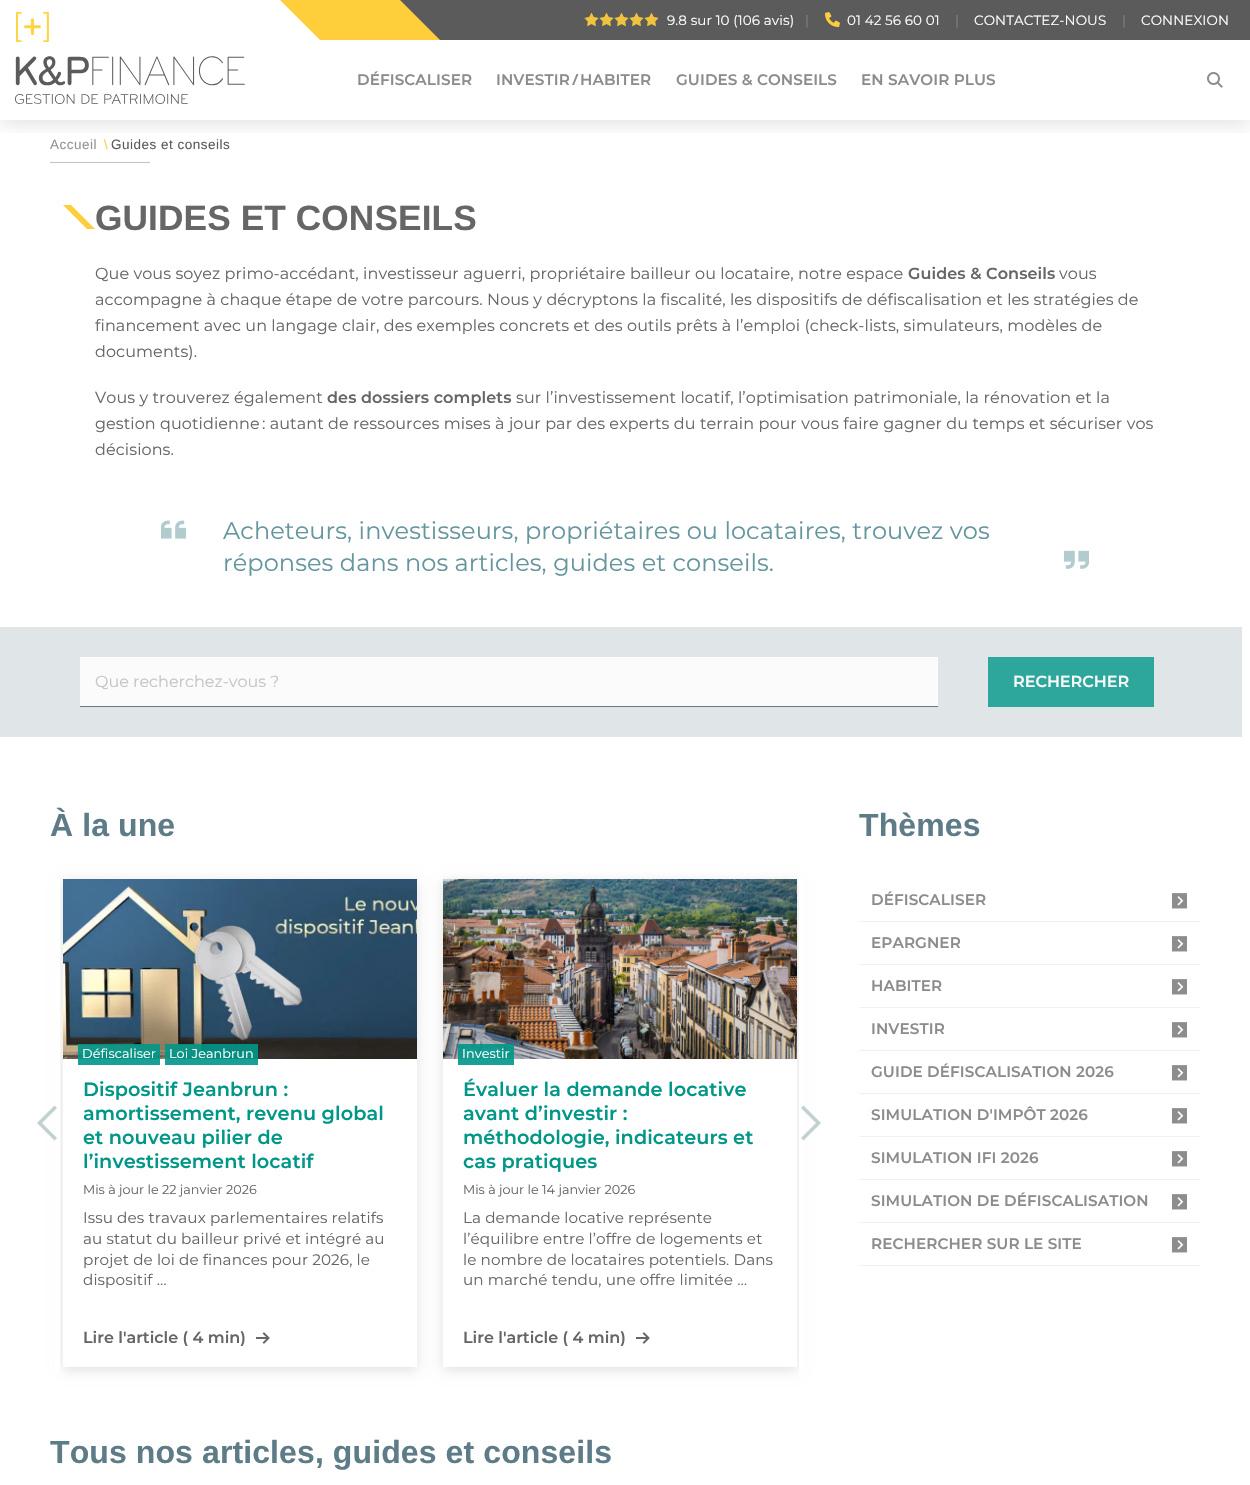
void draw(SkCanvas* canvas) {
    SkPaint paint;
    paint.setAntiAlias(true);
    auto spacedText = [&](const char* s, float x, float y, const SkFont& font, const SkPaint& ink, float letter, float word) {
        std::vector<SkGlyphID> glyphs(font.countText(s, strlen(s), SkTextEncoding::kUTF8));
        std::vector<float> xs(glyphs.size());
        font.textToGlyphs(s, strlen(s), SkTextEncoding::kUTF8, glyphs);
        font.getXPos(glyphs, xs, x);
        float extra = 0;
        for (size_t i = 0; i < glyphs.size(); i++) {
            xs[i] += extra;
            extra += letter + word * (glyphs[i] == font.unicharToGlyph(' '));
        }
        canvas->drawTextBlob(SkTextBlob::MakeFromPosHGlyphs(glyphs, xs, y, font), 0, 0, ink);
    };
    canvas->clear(0xFFFFFFFF);
    canvas->save();
    canvas->clipRect(SkRect::MakeXYWH(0, 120, 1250, 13));
    paint.setColor(0x1F000000);
    paint.setMaskFilter(SkMaskFilter::MakeBlur(kNormal_SkBlurStyle, 10));
    canvas->drawRect(SkRect::MakeXYWH(0, 3, 1250, 120), paint);
    paint.setMaskFilter(nullptr);
    canvas->restore();
    paint.setColor(0xFF5B5B5B);
    canvas->drawRect(SkRect::MakeXYWH(400, 0, 850, 40), paint);
    paint.setColor(0xFFFFCE3A);
    canvas->drawPath(SkPathBuilder().moveTo(280, 0).lineTo(400, 0).lineTo(440, 40).lineTo(320, 40).close().detach(), paint);
    canvas->drawImageRect(SkImages::DeferredFromEncodedData(SkData::MakeFromFileName("img2.png")), SkRect::MakeXYWH(584, 13, 75, 13), SkSamplingOptions());
    canvas->drawImageRect(SkImages::DeferredFromEncodedData(SkData::MakeFromFileName("img1.png")), SkRect::MakeXYWH(584, 12, 74, 15), SkSamplingOptions());
    SkFont font1(fontMgr->matchFamilyStyle("Montserrat", SkFontStyle::Normal()), 13.5f);
    font1.setSubpixel(true);
    paint.setColor(0xFFFFFFFF);
    spacedText("9.8 sur 10 (106 avis)", 667, 25, font1, paint, 0.1f, 0);
    paint.setColor(0xFF828282);
    spacedText("|", 805, 25, font1, paint, 0.1f, 0);
    canvas->drawImageRect(SkImages::DeferredFromEncodedData(SkData::MakeFromFileName("img3.png")), SkRect::MakeXYWH(825, 12, 15, 15), SkSamplingOptions());
    paint.setColor(0xFFFFFFFF);
    spacedText("01 42 56 60 01", 847, 25, font1, paint, 0.1f, 0);
    paint.setColor(0xFF828282);
    spacedText("|", 955, 25, font1, paint, 0.1f, 0);
    paint.setColor(0xFFFFFFFF);
    spacedText("CONTACTEZ-NOUS", 974, 25, font1, paint, 0.1f, 0);
    paint.setColor(0xFF828282);
    spacedText("|", 1122, 25, font1, paint, 0.1f, 0);
    paint.setColor(0xFFFFFFFF);
    spacedText("CONNEXION", 1141, 25, font1, paint, 0.1f, 0);
    canvas->drawImageRect(SkImages::DeferredFromEncodedData(SkData::MakeFromFileName("img4.png")), SkRect::MakeXYWH(15, 12, 230, 92), SkSamplingOptions());
    SkFont font2(fontMgr->matchFamilyStyle("Montserrat", SkFontStyle(600, SkFontStyle::kNormal_Width, SkFontStyle::kUpright_Slant)), 15.2f);
    font2.setSubpixel(true);
    paint.setColor(0xFF8C8C8C);
    spacedText("DÉFISCALISER", 357, 85, font2, paint, 0.1f, 0);
    spacedText("INVESTIR", 496, 85, font2, paint, 0.1f, 0);
    canvas->drawPath(SkPathBuilder().moveTo(576.5f, 74).lineTo(578.5f, 74).lineTo(574, 85).lineTo(572, 85).close().detach(), paint);
    spacedText("HABITER", 580, 85, font2, paint, 0.1f, 0);
    spacedText("GUIDES & CONSEILS", 676, 85, font2, paint, 0.1f, 0);
    spacedText("EN SAVOIR PLUS", 861, 85, font2, paint, 0.1f, 0);
    canvas->drawImageRect(SkImages::DeferredFromEncodedData(SkData::MakeFromFileName("img5.png")), SkRect::MakeXYWH(1207, 72, 16, 16), SkSamplingOptions());
    SkFont font3(fontMgr->matchFamilyStyle("Liberation Sans", SkFontStyle::Normal()), 13.5f);
    font3.setSubpixel(true);
    paint.setColor(0xFF949494);
    spacedText("Accueil", 50, 149, font3, paint, 0.5f, 0);
    SkFont font4(fontMgr->matchFamilyStyle("Liberation Sans", SkFontStyle::Normal()), 13);
    font4.setSubpixel(true);
    paint.setColor(0xFFFFCE3A);
    canvas->drawString("\\", 104, 149, font4, paint);
    paint.setColor(0xFF5B5B5B);
    spacedText("Guides et conseils", 111, 149, font3, paint, 0.5f, 0);
    paint.setColor(0xFFC1C1C1);
    canvas->drawRect(SkRect::MakeXYWH(50, 162, 100, 1), paint);
    paint.setColor(0xFFFFCE3A);
    canvas->drawPath(SkPathBuilder().moveTo(63, 205).lineTo(71, 205).lineTo(95, 229).lineTo(87, 229).close().detach(), paint);
    SkFont font5(fontMgr->matchFamilyStyle("Liberation Sans", SkFontStyle::Bold()), 35.25f);
    font5.setSubpixel(true);
    paint.setColor(0xFF666666);
    spacedText("GUIDES ET CONSEILS", 95, 230, font5, paint, 0.1f, 0);
    SkFont font6(fontMgr->matchFamilyStyle("Montserrat", SkFontStyle::Normal()), 16);
    font6.setSubpixel(true);
    spacedText("Que vous soyez primo-accédant, investisseur aguerri, propriétaire bailleur ou locataire, notre espace", 95, 279, font6, paint, 0.1f, 0);
    SkFont font7(fontMgr->matchFamilyStyle("Montserrat", SkFontStyle(600, SkFontStyle::kNormal_Width, SkFontStyle::kUpright_Slant)), 16);
    font7.setSubpixel(true);
    spacedText("Guides & Conseils", 908, 279, font7, paint, 0.1f, 0);
    spacedText("vous", 1059, 279, font6, paint, 0.1f, 0);
    spacedText("accompagne à chaque étape de votre parcours. Nous y décryptons la fiscalité, les dispositifs de défiscalisation et les stratégies de", 95, 305, font6, paint, 0.1f, 0);
    spacedText("financement avec un langage clair, des exemples concrets et des outils prêts à l’emploi (check-lists, simulateurs, modèles de", 95, 331, font6, paint, 0.1f, 0);
    spacedText("documents).", 95, 357, font6, paint, 0.1f, 0);
    spacedText("Vous y trouverez également", 95, 403, font6, paint, 0.1f, 0);
    spacedText("des dossiers complets", 327, 403, font7, paint, 0.1f, 0);
    spacedText("sur l’investissement locatif, l’optimisation patrimoniale, la rénovation et la", 516, 403, font6, paint, 0.1f, 0);
    spacedText("gestion quotidienne : autant de ressources mises à jour par des experts du terrain pour vous faire gagner du temps et sécuriser vos", 95, 429, font6, paint, 0.1f, 0);
    spacedText("décisions.", 95, 455, font6, paint, 0.1f, 0);
    canvas->drawImageRect(SkImages::DeferredFromEncodedData(SkData::MakeFromFileName("img6.png")), SkRect::MakeXYWH(161, 520, 25, 19), SkSamplingOptions());
    SkFont font8(fontMgr->matchFamilyStyle("Montserrat", SkFontStyle::Normal()), 24);
    font8.setSubpixel(true);
    paint.setColor(0xFF65969D);
    spacedText("Acheteurs, investisseurs, propriétaires ou locataires, trouvez vos", 223, 539, font8, paint, 0.1f, 0);
    spacedText("réponses dans nos articles, guides et conseils.", 223, 571, font8, paint, 0.1f, 0);
    canvas->drawImageRect(SkImages::DeferredFromEncodedData(SkData::MakeFromFileName("img7.png")), SkRect::MakeXYWH(1064, 550, 25, 19), SkSamplingOptions());
    paint.setColor(0xFFE0E5E8);
    canvas->drawRect(SkRect::MakeXYWH(0, 627, 1242, 110), paint);
    paint.setColor(0xFFFBFBFB);
    canvas->drawRect(SkRect::MakeXYWH(80, 657, 858, 49), paint);
    paint.setColor(0xFF607D8B);
    canvas->drawRect(SkRect::MakeXYWH(80, 706, 858, 1), paint);
    paint.setColor(0xFFC5C5C5);
    canvas->drawString("Que recherchez-vous ?", 95, 687, font6, paint);
    paint.setColor(0xFF2DA69B);
    canvas->drawRect(SkRect::MakeXYWH(988, 657, 166, 50), paint);
    paint.setColor(0xFFF9FAFA);
    canvas->drawString("RECHERCHER", 1013, 687, font7, paint);
    SkFont font9(fontMgr->matchFamilyStyle("Liberation Sans", SkFontStyle::Bold()), 32);
    font9.setSubpixel(true);
    paint.setColor(0xFF5E7B88);
    spacedText("À la une", 50, 836, font9, paint, 0.1f, 0);
    canvas->save();
    canvas->clipPath(SkPathBuilder(SkPathFillType::kEvenOdd).moveTo(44, 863).lineTo(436, 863).lineTo(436, 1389).lineTo(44, 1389).close().moveTo(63, 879).lineTo(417, 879).lineTo(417, 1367).lineTo(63, 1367).close().detach(), true);
    paint.setColor(0x1F000000);
    paint.setMaskFilter(SkMaskFilter::MakeBlur(kNormal_SkBlurStyle, 6));
    canvas->drawRect(SkRect::MakeXYWH(63, 882, 354, 488), paint);
    paint.setMaskFilter(nullptr);
    canvas->restore();
    paint.setColor(0xFFFFFFFF);
    canvas->drawRect(SkRect::MakeXYWH(55, 879, 5, 494), paint);
    paint.setColor(0xFFC3D0D1);
    canvas->drawPath(SkPathBuilder().moveTo(37, 1123).lineTo(54.5f, 1105.5f).lineTo(57, 1108).lineTo(42, 1123).lineTo(57, 1138).lineTo(54.5f, 1140.5f).close().detach(), paint);
    canvas->drawImageRect(SkImages::DeferredFromEncodedData(SkData::MakeFromFileName("img8.png")), SkRect::MakeXYWH(63, 879, 354, 180), SkSamplingOptions());
    paint.setColor(0xE6009688);
    canvas->drawRect(SkRect::MakeXYWH(78, 1044, 82, 21), paint);
    SkFont font10(fontMgr->matchFamilyStyle("Montserrat", SkFontStyle::Normal()), 12.75f);
    font10.setSubpixel(true);
    paint.setColor(0xFFFFFFFF);
    spacedText("Défiscaliser", 82, 1058, font10, paint, 0.1f, 0);
    paint.setColor(0xE6009688);
    canvas->drawRect(SkRect::MakeXYWH(165, 1044, 93, 21), paint);
    paint.setColor(0xFFFFFFFF);
    spacedText("Loi Jeanbrun", 169, 1058, font10, paint, 0.1f, 0);
    SkFont font11(fontMgr->matchFamilyStyle("Montserrat", SkFontStyle(600, SkFontStyle::kNormal_Width, SkFontStyle::kUpright_Slant)), 19.25f);
    font11.setSubpixel(true);
    paint.setColor(0xFF009688);
    spacedText("Dispositif Jeanbrun :", 83, 1096, font11, paint, 0.1f, 0);
    spacedText("amortissement, revenu global", 83, 1120, font11, paint, 0.1f, 0);
    spacedText("et nouveau pilier de", 83, 1144, font11, paint, 0.1f, 0);
    spacedText("l’investissement locatif", 83, 1168, font11, paint, 0.1f, 0);
    paint.setColor(0xFF666666);
    canvas->drawString("Mis à jour le 22 janvier 2026", 83, 1194, font10, paint);
    SkFont font12(fontMgr->matchFamilyStyle("Montserrat", SkFontStyle::Normal()), 15.2f);
    font12.setSubpixel(true);
    spacedText("Issu des travaux parlementaires relatifs", 83, 1223, font12, paint, 0.1f, 0);
    spacedText("au statut du bailleur privé et intégré au", 83, 1244, font12, paint, 0.1f, 0);
    spacedText("projet de loi de finances pour 2026, le", 83, 1265, font12, paint, 0.1f, 0);
    spacedText("dispositif …", 83, 1285, font12, paint, 0.1f, 0);
    canvas->drawString("Lire l'article ( 4 min)", 83, 1343, font7, paint);
    canvas->drawImageRect(SkImages::DeferredFromEncodedData(SkData::MakeFromFileName("img9.png")), SkRect::MakeXYWH(256, 1332, 14, 12), SkSamplingOptions());
    canvas->save();
    canvas->clipPath(SkPathBuilder(SkPathFillType::kEvenOdd).moveTo(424, 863).lineTo(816, 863).lineTo(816, 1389).lineTo(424, 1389).close().moveTo(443, 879).lineTo(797, 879).lineTo(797, 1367).lineTo(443, 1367).close().detach(), true);
    paint.setColor(0x1F000000);
    paint.setMaskFilter(SkMaskFilter::MakeBlur(kNormal_SkBlurStyle, 6));
    canvas->drawRect(SkRect::MakeXYWH(443, 882, 354, 488), paint);
    paint.setMaskFilter(nullptr);
    canvas->restore();
    canvas->drawImageRect(SkImages::DeferredFromEncodedData(SkData::MakeFromFileName("img10.png")), SkRect::MakeXYWH(443, 879, 354, 180), SkSamplingOptions());
    paint.setColor(0xE6009688);
    canvas->drawRect(SkRect::MakeXYWH(458, 1044, 56, 21), paint);
    paint.setColor(0xFFFFFFFF);
    spacedText("Investir", 462, 1058, font10, paint, 0.1f, 0);
    paint.setColor(0xFF009688);
    spacedText("Évaluer la demande locative", 463, 1096, font11, paint, 0.1f, 0);
    spacedText("avant d’investir :", 463, 1120, font11, paint, 0.1f, 0);
    spacedText("méthodologie, indicateurs et", 463, 1144, font11, paint, 0.1f, 0);
    spacedText("cas pratiques", 463, 1168, font11, paint, 0.1f, 0);
    paint.setColor(0xFF666666);
    canvas->drawString("Mis à jour le 14 janvier 2026", 463, 1194, font10, paint);
    spacedText("La demande locative représente", 463, 1223, font12, paint, 0.1f, 0);
    spacedText("l’équilibre entre l’offre de logements et", 463, 1244, font12, paint, 0.1f, 0);
    spacedText("le nombre de locataires potentiels. Dans", 463, 1265, font12, paint, 0.1f, 0);
    spacedText("un marché tendu, une offre limitée …", 463, 1285, font12, paint, 0.1f, 0);
    canvas->drawString("Lire l'article ( 4 min)", 463, 1343, font7, paint);
    canvas->drawImageRect(SkImages::DeferredFromEncodedData(SkData::MakeFromFileName("img9.png")), SkRect::MakeXYWH(636, 1332, 14, 12), SkSamplingOptions());
    paint.setColor(0xFFFFFFFF);
    canvas->drawRect(SkRect::MakeXYWH(799, 878, 6, 496), paint);
    paint.setColor(0xFFC3D0D1);
    canvas->drawPath(SkPathBuilder().moveTo(821, 1123).lineTo(803.5f, 1140.5f).lineTo(801, 1138).lineTo(816, 1123).lineTo(801, 1108).lineTo(803.5f, 1105.5f).close().detach(), paint);
    paint.setColor(0xFF5E7B88);
    spacedText("Thèmes", 859, 836, font9, paint, 0.1f, 0);
    paint.setColor(0xFFF1F1F1);
    canvas->drawRect(SkRect::MakeXYWH(859, 921, 341, 1), paint);
    paint.setColor(0xFF8C8C8C);
    spacedText("DÉFISCALISER", 871, 905, font2, paint, 0.1f, 0);
    canvas->drawImageRect(SkImages::DeferredFromEncodedData(SkData::MakeFromFileName("img11.png")), SkRect::MakeXYWH(1172, 893, 15, 16), SkSamplingOptions());
    paint.setColor(0xFFF1F1F1);
    canvas->drawRect(SkRect::MakeXYWH(859, 964, 341, 1), paint);
    paint.setColor(0xFF8C8C8C);
    spacedText("EPARGNER", 871, 948, font2, paint, 0.1f, 0);
    canvas->drawImageRect(SkImages::DeferredFromEncodedData(SkData::MakeFromFileName("img11.png")), SkRect::MakeXYWH(1172, 936, 15, 16), SkSamplingOptions());
    paint.setColor(0xFFF1F1F1);
    canvas->drawRect(SkRect::MakeXYWH(859, 1007, 341, 1), paint);
    paint.setColor(0xFF8C8C8C);
    spacedText("HABITER", 871, 991, font2, paint, 0.1f, 0);
    canvas->drawImageRect(SkImages::DeferredFromEncodedData(SkData::MakeFromFileName("img11.png")), SkRect::MakeXYWH(1172, 979, 15, 16), SkSamplingOptions());
    paint.setColor(0xFFF1F1F1);
    canvas->drawRect(SkRect::MakeXYWH(859, 1050, 341, 1), paint);
    paint.setColor(0xFF8C8C8C);
    spacedText("INVESTIR", 871, 1034, font2, paint, 0.1f, 0);
    canvas->drawImageRect(SkImages::DeferredFromEncodedData(SkData::MakeFromFileName("img11.png")), SkRect::MakeXYWH(1172, 1022, 15, 16), SkSamplingOptions());
    paint.setColor(0xFFF1F1F1);
    canvas->drawRect(SkRect::MakeXYWH(859, 1093, 341, 1), paint);
    paint.setColor(0xFF8C8C8C);
    spacedText("GUIDE DÉFISCALISATION 2026", 871, 1077, font2, paint, 0.1f, 0);
    canvas->drawImageRect(SkImages::DeferredFromEncodedData(SkData::MakeFromFileName("img11.png")), SkRect::MakeXYWH(1172, 1065, 15, 16), SkSamplingOptions());
    paint.setColor(0xFFF1F1F1);
    canvas->drawRect(SkRect::MakeXYWH(859, 1136, 341, 1), paint);
    paint.setColor(0xFF8C8C8C);
    spacedText("SIMULATION D'IMPÔT 2026", 871, 1120, font2, paint, 0.1f, 0);
    canvas->drawImageRect(SkImages::DeferredFromEncodedData(SkData::MakeFromFileName("img11.png")), SkRect::MakeXYWH(1172, 1108, 15, 16), SkSamplingOptions());
    paint.setColor(0xFFF1F1F1);
    canvas->drawRect(SkRect::MakeXYWH(859, 1179, 341, 1), paint);
    paint.setColor(0xFF8C8C8C);
    spacedText("SIMULATION IFI 2026", 871, 1163, font2, paint, 0.1f, 0);
    canvas->drawImageRect(SkImages::DeferredFromEncodedData(SkData::MakeFromFileName("img11.png")), SkRect::MakeXYWH(1172, 1151, 15, 16), SkSamplingOptions());
    paint.setColor(0xFFF1F1F1);
    canvas->drawRect(SkRect::MakeXYWH(859, 1222, 341, 1), paint);
    paint.setColor(0xFF8C8C8C);
    spacedText("SIMULATION DE DÉFISCALISATION", 871, 1206, font2, paint, 0.1f, 0);
    canvas->drawImageRect(SkImages::DeferredFromEncodedData(SkData::MakeFromFileName("img11.png")), SkRect::MakeXYWH(1172, 1194, 15, 16), SkSamplingOptions());
    paint.setColor(0xFFF1F1F1);
    canvas->drawRect(SkRect::MakeXYWH(859, 1265, 341, 1), paint);
    paint.setColor(0xFF8C8C8C);
    spacedText("RECHERCHER SUR LE SITE", 871, 1249, font2, paint, 0.1f, 0);
    canvas->drawImageRect(SkImages::DeferredFromEncodedData(SkData::MakeFromFileName("img11.png")), SkRect::MakeXYWH(1172, 1237, 15, 16), SkSamplingOptions());
    paint.setColor(0xFF5E7B88);
    spacedText("Tous nos articles, guides et conseils", 50, 1463, font9, paint, 0.1f, 0);
}
